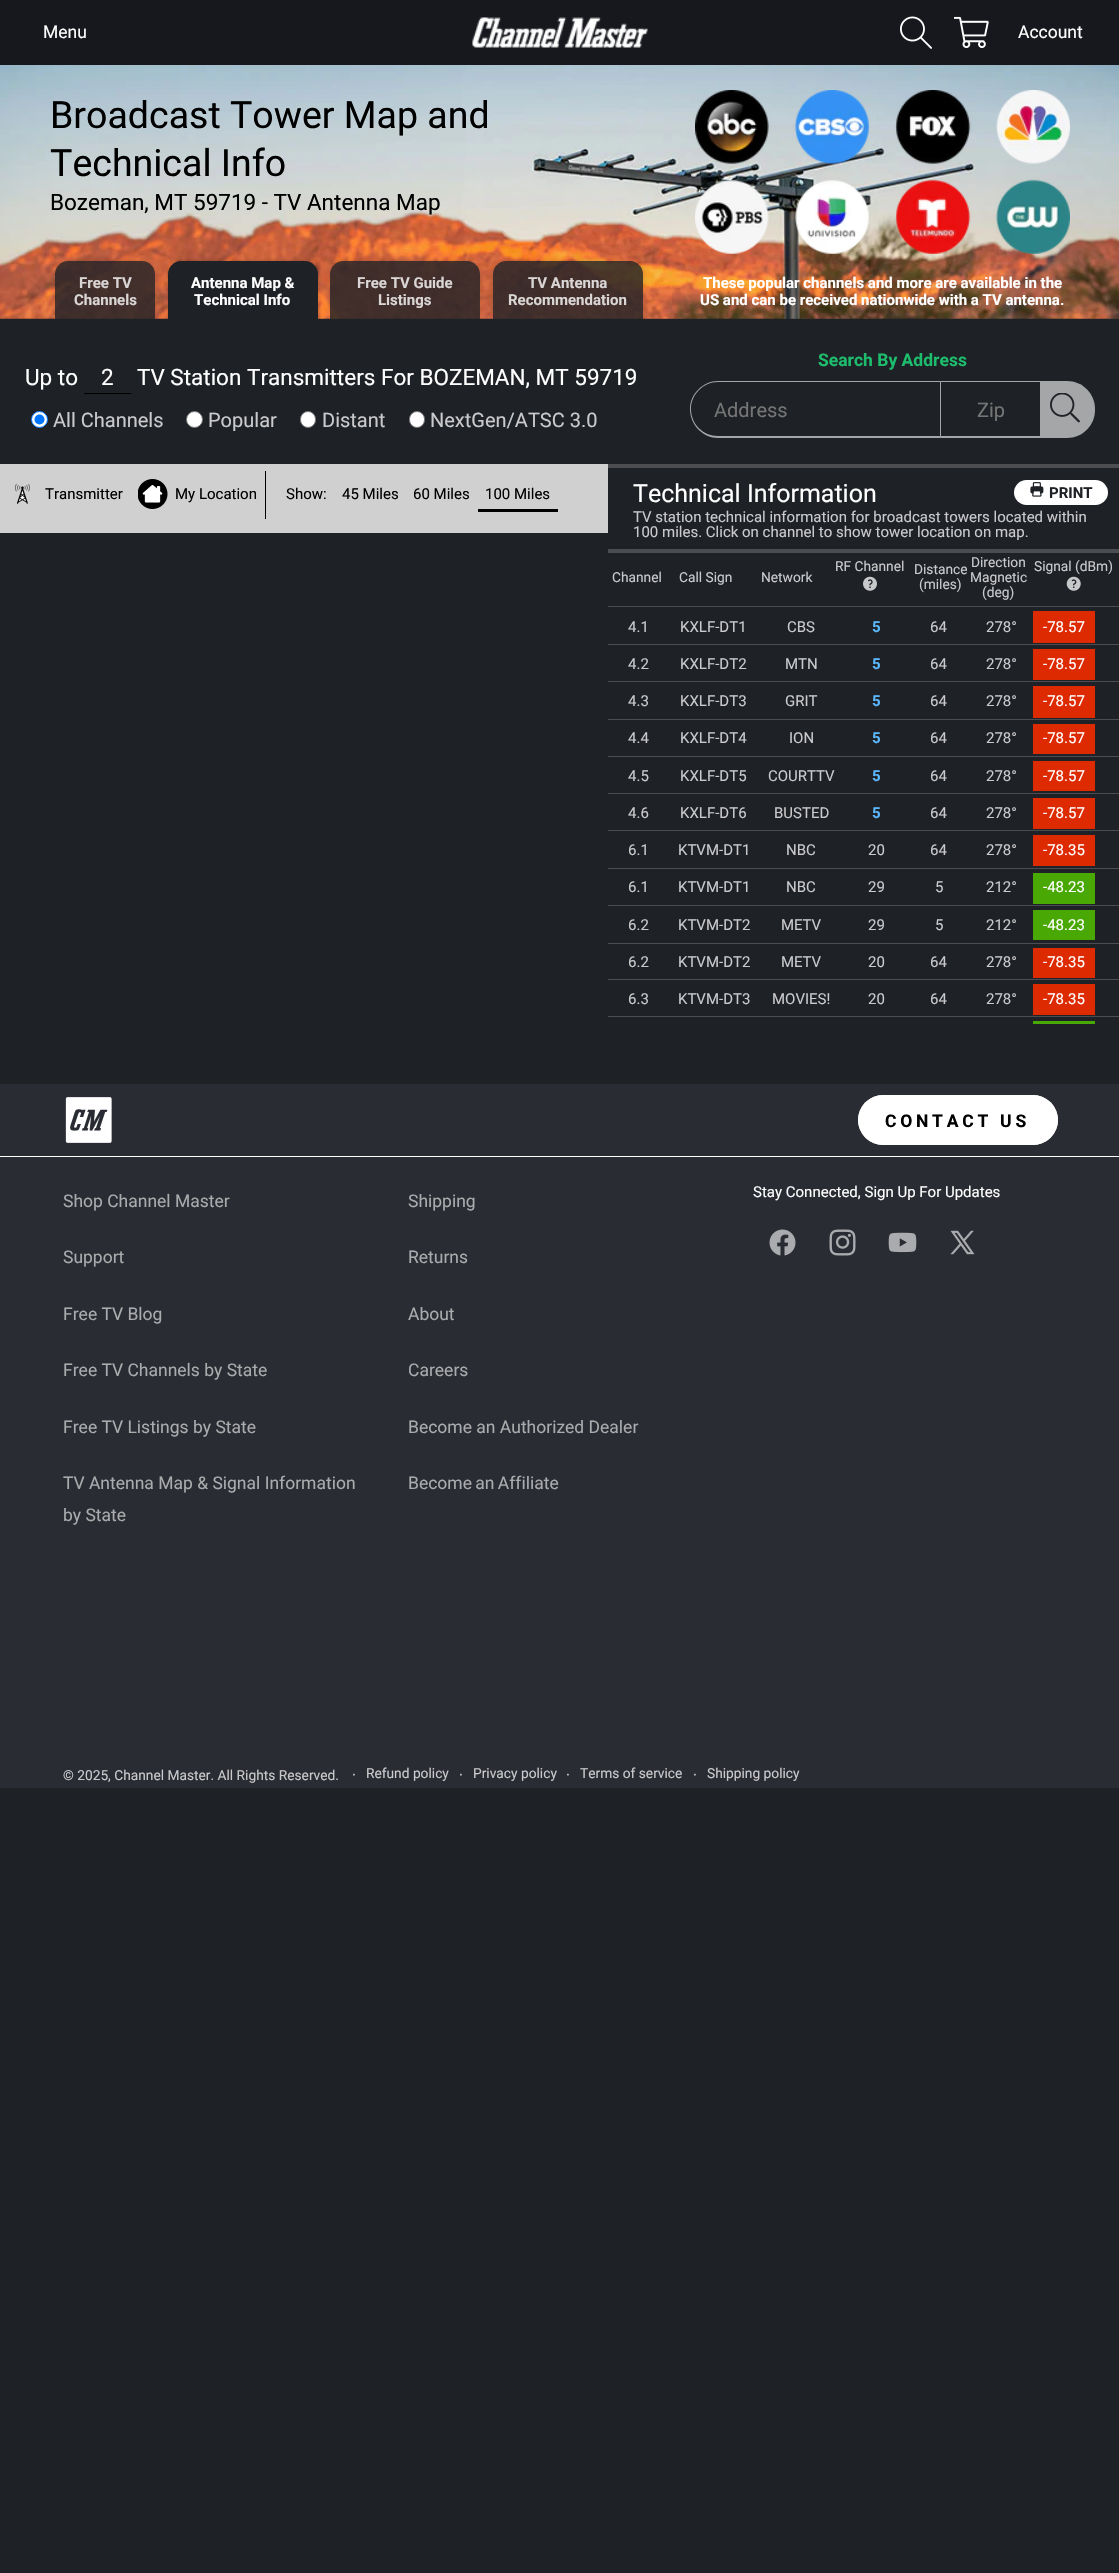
void draw(SkCanvas* canvas) {
    SkPaint paint;
    paint.setAntiAlias(true);
    auto spacedText = [&](const char* s, float x, float y, const SkFont& font, const SkPaint& ink, float letter, float word) {
        std::vector<SkGlyphID> glyphs(font.countText(s, strlen(s), SkTextEncoding::kUTF8));
        std::vector<float> xs(glyphs.size());
        font.textToGlyphs(s, strlen(s), SkTextEncoding::kUTF8, glyphs);
        font.getXPos(glyphs, xs, x);
        float extra = 0;
        for (size_t i = 0; i < glyphs.size(); i++) {
            xs[i] += extra;
            extra += letter + word * (glyphs[i] == font.unicharToGlyph(' '));
        }
        canvas->drawTextBlob(SkTextBlob::MakeFromPosHGlyphs(glyphs, xs, y, font), 0, 0, ink);
    };
    canvas->clear(0xFF1E2126);
    paint.setColor(0xFF16181D);
    canvas->drawRect(SkRect::MakeXYWH(0, 0, 1119, 65), paint);
    SkFont font1(fontMgr->matchFamilyStyle("Roboto", SkFontStyle::Normal()), 17.5f);
    font1.setSubpixel(true);
    paint.setColor(0xFFFFFFFF);
    canvas->drawString("Menu", 43, 38, font1, paint);
    canvas->drawImageRect(SkImages::DeferredFromEncodedData(SkData::MakeFromFileName("img1.png")), SkRect::MakeXYWH(472, 17, 176, 31), SkSamplingOptions());
    canvas->drawImageRect(SkImages::DeferredFromEncodedData(SkData::MakeFromFileName("img2.png")), SkRect::MakeXYWH(900, 16, 32, 33), SkSamplingOptions());
    canvas->drawImageRect(SkImages::DeferredFromEncodedData(SkData::MakeFromFileName("img3.png")), SkRect::MakeXYWH(954, 16, 35, 33), SkSamplingOptions());
    canvas->drawString("Account", 1018, 38, font1, paint);
    canvas->drawImageRect(SkImages::DeferredFromEncodedData(SkData::MakeFromFileName("img4.png")), SkRect::MakeXYWH(0, 65, 1119, 254), SkSamplingOptions());
    SkFont font2(fontMgr->matchFamilyStyle("Roboto", SkFontStyle::Normal()), 37.5f);
    font2.setSubpixel(true);
    paint.setColor(0xFF000000);
    canvas->drawString("Broadcast Tower Map and", 50, 128, font2, paint);
    canvas->drawString("Technical Info", 50, 176, font2, paint);
    SkFont font3(fontMgr->matchFamilyStyle("Roboto", SkFontStyle::Normal()), 22.5f);
    font3.setSubpixel(true);
    canvas->drawString("Bozeman, MT 59719 - TV Antenna Map", 50, 210, font3, paint);
    canvas->save();
    canvas->clipRect(SkRect::MakeXYWH(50, 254, 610, 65));
    canvas->clipPath(SkPathBuilder(SkPathFillType::kEvenOdd).moveTo(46, 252).lineTo(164, 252).lineTo(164, 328).lineTo(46, 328).close().moveTo(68, 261).lineTo(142, 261).cubicTo(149, 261, 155, 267, 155, 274).lineTo(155, 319).lineTo(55, 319).lineTo(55, 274).cubicTo(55, 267, 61, 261, 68, 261).close().detach(), true);
    paint.setColor(0x29000000);
    paint.setMaskFilter(SkMaskFilter::MakeBlur(kNormal_SkBlurStyle, 2.5f));
    canvas->drawRoundRect(SkRect::MakeXYWH(55, 261, 100, 58), 13, 13, paint);
    paint.setMaskFilter(nullptr);
    canvas->restore();
    paint.setColor(0xCC1E2126);
    canvas->drawPath(SkPathBuilder().moveTo(68, 261).lineTo(142, 261).cubicTo(149, 261, 155, 267, 155, 274).lineTo(155, 319).lineTo(55, 319).lineTo(55, 274).cubicTo(55, 267, 61, 261, 68, 261).close().detach(), paint);
    SkFont font4(fontMgr->matchFamilyStyle("Roboto", SkFontStyle::Bold()), 15);
    font4.setSubpixel(true);
    paint.setColor(0xFFD9D6D5);
    canvas->drawString("Free TV", 79, 288, font4, paint);
    canvas->drawString("Channels", 74, 305, font4, paint);
    canvas->save();
    canvas->clipRect(SkRect::MakeXYWH(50, 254, 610, 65));
    paint.setColor(0x33000000);
    paint.setMaskFilter(SkMaskFilter::MakeBlur(kNormal_SkBlurStyle, 2.5f));
    canvas->drawRoundRect(SkRect::MakeXYWH(168, 261, 150, 58), 13, 13, paint);
    paint.setMaskFilter(nullptr);
    canvas->restore();
    paint.setColor(0xFF1E2126);
    canvas->drawPath(SkPathBuilder().moveTo(181, 261).lineTo(305, 261).cubicTo(312, 261, 318, 267, 318, 274).lineTo(318, 319).lineTo(168, 319).lineTo(168, 274).cubicTo(168, 267, 174, 261, 181, 261).close().detach(), paint);
    paint.setColor(0xFFFFFFFF);
    canvas->drawString("Antenna Map &", 191, 288, font4, paint);
    canvas->drawString("Technical Info", 194, 305, font4, paint);
    canvas->save();
    canvas->clipRect(SkRect::MakeXYWH(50, 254, 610, 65));
    canvas->clipPath(SkPathBuilder(SkPathFillType::kEvenOdd).moveTo(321, 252).lineTo(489, 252).lineTo(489, 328).lineTo(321, 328).close().moveTo(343, 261).lineTo(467, 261).cubicTo(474, 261, 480, 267, 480, 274).lineTo(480, 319).lineTo(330, 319).lineTo(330, 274).cubicTo(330, 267, 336, 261, 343, 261).close().detach(), true);
    paint.setColor(0x29000000);
    paint.setMaskFilter(SkMaskFilter::MakeBlur(kNormal_SkBlurStyle, 2.5f));
    canvas->drawRoundRect(SkRect::MakeXYWH(330, 261, 150, 58), 13, 13, paint);
    paint.setMaskFilter(nullptr);
    canvas->restore();
    paint.setColor(0xCC1E2126);
    canvas->drawPath(SkPathBuilder().moveTo(343, 261).lineTo(467, 261).cubicTo(474, 261, 480, 267, 480, 274).lineTo(480, 319).lineTo(330, 319).lineTo(330, 274).cubicTo(330, 267, 336, 261, 343, 261).close().detach(), paint);
    paint.setColor(0xFFD9D6D5);
    canvas->drawString("Free TV Guide", 357, 288, font4, paint);
    canvas->drawString("Listings", 378, 305, font4, paint);
    canvas->save();
    canvas->clipRect(SkRect::MakeXYWH(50, 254, 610, 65));
    canvas->clipPath(SkPathBuilder(SkPathFillType::kEvenOdd).moveTo(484, 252).lineTo(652, 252).lineTo(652, 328).lineTo(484, 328).close().moveTo(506, 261).lineTo(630, 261).cubicTo(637, 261, 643, 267, 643, 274).lineTo(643, 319).lineTo(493, 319).lineTo(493, 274).cubicTo(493, 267, 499, 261, 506, 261).close().detach(), true);
    paint.setColor(0x29000000);
    paint.setMaskFilter(SkMaskFilter::MakeBlur(kNormal_SkBlurStyle, 2.5f));
    canvas->drawRoundRect(SkRect::MakeXYWH(493, 261, 150, 58), 13, 13, paint);
    paint.setMaskFilter(nullptr);
    canvas->restore();
    paint.setColor(0xCC1E2126);
    canvas->drawPath(SkPathBuilder().moveTo(506, 261).lineTo(630, 261).cubicTo(637, 261, 643, 267, 643, 274).lineTo(643, 319).lineTo(493, 319).lineTo(493, 274).cubicTo(493, 267, 499, 261, 506, 261).close().detach(), paint);
    paint.setColor(0xFFD9D6D5);
    canvas->drawString("TV Antenna", 528, 288, font4, paint);
    canvas->drawString("Recommendation", 508, 305, font4, paint);
    canvas->drawImageRect(SkImages::DeferredFromEncodedData(SkData::MakeFromFileName("img5.png")), SkRect::MakeXYWH(695, 90, 375, 164), SkSamplingOptions());
    paint.setColor(0xFFFFFFFF);
    canvas->drawString("These popular channels and more are available in the", 703, 288, font4, paint);
    canvas->drawString("US and can be received nationwide with a TV antenna.", 700, 305, font4, paint);
    canvas->drawString("Up to", 25, 385, font3, paint);
    paint.setColor(0xFF000000);
    canvas->drawRect(SkRect::MakeXYWH(84, 393, 47, 1), paint);
    paint.setColor(0xFFFFFFFF);
    canvas->drawString("2", 101, 385, font3, paint);
    canvas->drawString("TV Station Transmitters For BOZEMAN, MT 59719", 137, 385, font3, paint);
    canvas->drawCircle(39.5f, 419.5f, 8, paint);
    paint.setStyle(SkPaint::kStroke_Style);
    paint.setStrokeWidth(1);
    paint.setColor(0xFF0075FF);
    canvas->drawCircle(39.5f, 419.5f, 8, paint);
    paint.setStyle(SkPaint::kFill_Style);
    canvas->drawCircle(39.5f, 419.5f, 5, paint);
    SkFont font5(fontMgr->matchFamilyStyle("Roboto", SkFontStyle::Normal()), 20);
    font5.setSubpixel(true);
    paint.setColor(0xFFCACACC);
    canvas->drawString("All Channels", 53, 427, font5, paint);
    paint.setColor(0xFFFFFFFF);
    canvas->drawCircle(194.5f, 419.5f, 8, paint);
    paint.setStyle(SkPaint::kStroke_Style);
    paint.setColor(0xFF767676);
    canvas->drawCircle(194.5f, 419.5f, 8, paint);
    paint.setStyle(SkPaint::kFill_Style);
    paint.setColor(0xFFCACACC);
    canvas->drawString("Popular", 208, 427, font5, paint);
    paint.setColor(0xFFFFFFFF);
    canvas->drawRoundRect(SkRect::MakeXYWH(300.5f, 411.5f, 15, 16), 7.5f, 7.5f, paint);
    paint.setStyle(SkPaint::kStroke_Style);
    paint.setColor(0xFF767676);
    canvas->drawRoundRect(SkRect::MakeXYWH(300.5f, 411.5f, 15, 16), 7.5f, 7.5f, paint);
    paint.setStyle(SkPaint::kFill_Style);
    paint.setColor(0xFFCACACC);
    canvas->drawString("Distant", 322, 427, font5, paint);
    paint.setColor(0xFFFFFFFF);
    canvas->drawRoundRect(SkRect::MakeXYWH(409.5f, 411.5f, 15, 16), 7.5f, 7.5f, paint);
    paint.setStyle(SkPaint::kStroke_Style);
    paint.setColor(0xFF767676);
    canvas->drawRoundRect(SkRect::MakeXYWH(409.5f, 411.5f, 15, 16), 7.5f, 7.5f, paint);
    paint.setStyle(SkPaint::kFill_Style);
    paint.setColor(0xFFCACACC);
    canvas->drawString("NextGen/ATSC 3.0", 430, 427, font5, paint);
    SkFont font6(fontMgr->matchFamilyStyle("Roboto", SkFontStyle::Bold()), 17.5f);
    font6.setSubpixel(true);
    paint.setColor(0xFF1EBD6D);
    canvas->drawString("Search By Address", 818, 366, font6, paint);
    paint.setColor(0xFFA5A6A8);
    canvas->drawPath(SkPathBuilder(SkPathFillType::kEvenOdd).moveTo(718, 381).lineTo(940, 381).lineTo(940, 438).lineTo(718, 438).cubicTo(703, 438, 690, 425, 690, 409).cubicTo(690, 394, 703, 381, 718, 381).close().moveTo(718, 382).lineTo(940, 382).lineTo(940, 436).lineTo(718, 436).cubicTo(703, 436, 691, 424, 691, 409).cubicTo(691, 395, 703, 382, 718, 382).close().detach(), paint);
    paint.setColor(0xFF757575);
    canvas->drawString("Address", 714, 417, font5, paint);
    paint.setColor(0xFFA5A6A8);
    canvas->drawPath(SkPathBuilder().moveTo(940, 381).lineTo(1040, 381).lineTo(1040, 382).lineTo(941, 382).close().detach(), paint);
    canvas->drawPath(SkPathBuilder().moveTo(1040, 438).lineTo(940, 438).lineTo(941, 436).lineTo(1040, 436).close().detach(), paint);
    paint.setColor(0x99FFFFFF);
    canvas->drawPath(SkPathBuilder().moveTo(940, 438).lineTo(940, 381).lineTo(941, 382).lineTo(941, 436).close().detach(), paint);
    paint.setColor(0xFF757575);
    canvas->drawString("Zip", 977, 417, font5, paint);
    paint.setColor(0xFFA5A6A8);
    canvas->drawPath(SkPathBuilder().moveTo(1040, 381).lineTo(1067, 381).cubicTo(1082.5f, 381, 1095, 393.5f, 1095, 409).lineTo(1095, 410).cubicTo(1095, 425.5f, 1082.5f, 438, 1067, 438).lineTo(1040, 438).close().detach(), paint);
    canvas->drawImageRect(SkImages::DeferredFromEncodedData(SkData::MakeFromFileName("img6.png")), SkRect::MakeXYWH(1050, 393, 30, 30), SkSamplingOptions());
    paint.setColor(0xFFD0D0D0);
    canvas->drawRect(SkRect::MakeXYWH(0, 464, 608, 69), paint);
    canvas->drawImageRect(SkImages::DeferredFromEncodedData(SkData::MakeFromFileName("img7.png")), SkRect::MakeXYWH(14, 483, 16, 21), SkSamplingOptions());
    SkFont font7(fontMgr->matchFamilyStyle("Roboto", SkFontStyle::Normal()), 15);
    font7.setSubpixel(true);
    paint.setColor(0xFF000000);
    canvas->drawString("Transmitter", 45, 499, font7, paint);
    canvas->drawImageRect(SkImages::DeferredFromEncodedData(SkData::MakeFromFileName("img8.png")), SkRect::MakeXYWH(138, 479, 30, 30), SkSamplingOptions());
    canvas->drawString("My Location", 175, 499, font7, paint);
    canvas->drawRect(SkRect::MakeXYWH(265, 471, 1, 48), paint);
    canvas->drawString("Show:", 286, 499, font7, paint);
    canvas->drawString("45 Miles", 342, 499, font7, paint);
    canvas->drawString("60 Miles", 413, 499, font7, paint);
    canvas->drawRect(SkRect::MakeXYWH(478, 509, 80, 3), paint);
    canvas->drawString("100 Miles", 485, 499, font7, paint);
    paint.setColor(0xFF4B4D51);
    canvas->drawRect(SkRect::MakeXYWH(608, 464, 511, 4), paint);
    canvas->drawRect(SkRect::MakeXYWH(608, 549, 511, 4), paint);
    SkFont font8(fontMgr->matchFamilyStyle("Roboto", SkFontStyle::Normal()), 25);
    font8.setSubpixel(true);
    paint.setColor(0xFFFFFFFF);
    canvas->drawString("Technical Information", 633, 502, font8, paint);
    canvas->drawRoundRect(SkRect::MakeXYWH(1014, 480, 94, 25), 12.5f, 12.5f, paint);
    canvas->drawImageRect(SkImages::DeferredFromEncodedData(SkData::MakeFromFileName("img9.png")), SkRect::MakeXYWH(1030, 482, 14, 15), SkSamplingOptions());
    paint.setColor(0xFF1E2126);
    canvas->drawString("PRINT", 1049, 498, font4, paint);
    paint.setColor(0xFFCACACC);
    canvas->drawString("TV station technical information for broadcast towers located within", 633, 522, font7, paint);
    canvas->drawString("100 miles. Click on channel to show tower location on map.", 633, 537, font7, paint);
    SkFont font9(fontMgr->matchFamilyStyle("Roboto", SkFontStyle::Normal()), 13.75f);
    font9.setSubpixel(true);
    canvas->drawString("Channel", 612, 582, font9, paint);
    canvas->drawString("Call Sign", 679, 582, font9, paint);
    canvas->drawString("Network", 761, 582, font9, paint);
    canvas->drawString("RF Channel", 835, 571, font9, paint);
    canvas->drawImageRect(SkImages::DeferredFromEncodedData(SkData::MakeFromFileName("img10.png")), SkRect::MakeXYWH(863, 576, 14, 15), SkSamplingOptions());
    canvas->drawString("Distance", 914, 574, font9, paint);
    canvas->drawString("(miles)", 919, 589, font9, paint);
    canvas->drawString("Direction", 971, 567, font9, paint);
    canvas->drawString("Magnetic", 970, 582, font9, paint);
    canvas->drawString("(deg)", 982, 597, font9, paint);
    canvas->drawString("Signal (dBm)", 1034, 571, font9, paint);
    canvas->drawImageRect(SkImages::DeferredFromEncodedData(SkData::MakeFromFileName("img11.png")), SkRect::MakeXYWH(1066, 576, 15, 15), SkSamplingOptions());
    paint.setColor(0xFF4B4D51);
    canvas->drawRect(SkRect::MakeXYWH(608, 606, 511, 1), paint);
    paint.setColor(0xFFCACACC);
    canvas->drawString("4.1", 628, 632, font7, paint);
    canvas->drawString("KXLF-DT1", 680, 632, font7, paint);
    canvas->drawString("CBS", 787, 632, font7, paint);
    paint.setColor(0xFF5AB9FF);
    canvas->drawString("5", 872, 632, font4, paint);
    paint.setColor(0xFFCACACC);
    canvas->drawString("64", 930, 632, font7, paint);
    canvas->drawString("278°", 986, 632, font7, paint);
    paint.setColor(0xFFDD2A00);
    canvas->drawRect(SkRect::MakeXYWH(1033, 611, 62, 32), paint);
    paint.setColor(0xFFFFFFFF);
    canvas->drawString("-78.57", 1043, 632, font7, paint);
    paint.setColor(0xFF4B4D51);
    canvas->drawRect(SkRect::MakeXYWH(608, 644, 511, 1), paint);
    paint.setColor(0xFFCACACC);
    canvas->drawString("4.2", 628, 669, font7, paint);
    canvas->drawString("KXLF-DT2", 680, 669, font7, paint);
    canvas->drawString("MTN", 785, 669, font7, paint);
    paint.setColor(0xFF5AB9FF);
    canvas->drawString("5", 872, 669, font4, paint);
    paint.setColor(0xFFCACACC);
    canvas->drawString("64", 930, 669, font7, paint);
    canvas->drawString("278°", 986, 669, font7, paint);
    paint.setColor(0xFFDD2A00);
    canvas->drawRect(SkRect::MakeXYWH(1033, 649, 62, 31), paint);
    paint.setColor(0xFFFFFFFF);
    canvas->drawString("-78.57", 1043, 669, font7, paint);
    paint.setColor(0xFF4B4D51);
    canvas->drawRect(SkRect::MakeXYWH(608, 681, 511, 1), paint);
    paint.setColor(0xFFCACACC);
    canvas->drawString("4.3", 628, 706, font7, paint);
    canvas->drawString("KXLF-DT3", 680, 706, font7, paint);
    canvas->drawString("GRIT", 785, 706, font7, paint);
    paint.setColor(0xFF5AB9FF);
    canvas->drawString("5", 872, 706, font4, paint);
    paint.setColor(0xFFCACACC);
    canvas->drawString("64", 930, 706, font7, paint);
    canvas->drawString("278°", 986, 706, font7, paint);
    paint.setColor(0xFFDD2A00);
    canvas->drawRect(SkRect::MakeXYWH(1033, 686, 62, 32), paint);
    paint.setColor(0xFFFFFFFF);
    canvas->drawString("-78.57", 1043, 706, font7, paint);
    paint.setColor(0xFF4B4D51);
    canvas->drawRect(SkRect::MakeXYWH(608, 719, 511, 1), paint);
    paint.setColor(0xFFCACACC);
    canvas->drawString("4.4", 628, 743, font7, paint);
    canvas->drawString("KXLF-DT4", 680, 743, font7, paint);
    canvas->drawString("ION", 789, 743, font7, paint);
    paint.setColor(0xFF5AB9FF);
    canvas->drawString("5", 872, 743, font4, paint);
    paint.setColor(0xFFCACACC);
    canvas->drawString("64", 930, 743, font7, paint);
    canvas->drawString("278°", 986, 743, font7, paint);
    paint.setColor(0xFFDD2A00);
    canvas->drawRect(SkRect::MakeXYWH(1033, 724, 62, 30), paint);
    paint.setColor(0xFFFFFFFF);
    canvas->drawString("-78.57", 1043, 743, font7, paint);
    paint.setColor(0xFF4B4D51);
    canvas->drawRect(SkRect::MakeXYWH(608, 756, 511, 1), paint);
    paint.setColor(0xFFCACACC);
    canvas->drawString("4.5", 628, 781, font7, paint);
    canvas->drawString("KXLF-DT5", 680, 781, font7, paint);
    canvas->drawString("COURTTV", 768, 781, font7, paint);
    paint.setColor(0xFF5AB9FF);
    canvas->drawString("5", 872, 781, font4, paint);
    paint.setColor(0xFFCACACC);
    canvas->drawString("64", 930, 781, font7, paint);
    canvas->drawString("278°", 986, 781, font7, paint);
    paint.setColor(0xFFDD2A00);
    canvas->drawRect(SkRect::MakeXYWH(1033, 761, 62, 30), paint);
    paint.setColor(0xFFFFFFFF);
    canvas->drawString("-78.57", 1043, 781, font7, paint);
    paint.setColor(0xFF4B4D51);
    canvas->drawRect(SkRect::MakeXYWH(608, 793, 511, 1), paint);
    paint.setColor(0xFFCACACC);
    canvas->drawString("4.6", 628, 818, font7, paint);
    canvas->drawString("KXLF-DT6", 680, 818, font7, paint);
    canvas->drawString("BUSTED", 774, 818, font7, paint);
    paint.setColor(0xFF5AB9FF);
    canvas->drawString("5", 872, 818, font4, paint);
    paint.setColor(0xFFCACACC);
    canvas->drawString("64", 930, 818, font7, paint);
    canvas->drawString("278°", 986, 818, font7, paint);
    paint.setColor(0xFFDD2A00);
    canvas->drawRect(SkRect::MakeXYWH(1033, 798, 62, 31), paint);
    paint.setColor(0xFFFFFFFF);
    canvas->drawString("-78.57", 1043, 818, font7, paint);
    paint.setColor(0xFF4B4D51);
    canvas->drawRect(SkRect::MakeXYWH(608, 830, 511, 1), paint);
    paint.setColor(0xFFCACACC);
    canvas->drawString("6.1", 628, 855, font7, paint);
    canvas->drawString("KTVM-DT1", 678, 855, font7, paint);
    canvas->drawString("NBC", 786, 855, font7, paint);
    canvas->drawString("20", 868, 855, font7, paint);
    canvas->drawString("64", 930, 855, font7, paint);
    canvas->drawString("278°", 986, 855, font7, paint);
    paint.setColor(0xFFDD2A00);
    canvas->drawRect(SkRect::MakeXYWH(1033, 835, 62, 31), paint);
    paint.setColor(0xFFFFFFFF);
    canvas->drawString("-78.35", 1043, 855, font7, paint);
    paint.setColor(0xFF4B4D51);
    canvas->drawRect(SkRect::MakeXYWH(608, 868, 511, 1), paint);
    paint.setColor(0xFFCACACC);
    canvas->drawString("6.1", 628, 892, font7, paint);
    canvas->drawString("KTVM-DT1", 678, 892, font7, paint);
    canvas->drawString("NBC", 786, 892, font7, paint);
    canvas->drawString("29", 868, 892, font7, paint);
    canvas->drawString("5", 935, 892, font7, paint);
    canvas->drawString("212°", 986, 892, font7, paint);
    paint.setColor(0xFF49A803);
    canvas->drawRect(SkRect::MakeXYWH(1033, 873, 62, 31), paint);
    paint.setColor(0xFFFFFFFF);
    canvas->drawString("-48.23", 1043, 892, font7, paint);
    paint.setColor(0xFF4B4D51);
    canvas->drawRect(SkRect::MakeXYWH(608, 905, 511, 1), paint);
    paint.setColor(0xFFCACACC);
    canvas->drawString("6.2", 628, 930, font7, paint);
    canvas->drawString("KTVM-DT2", 678, 930, font7, paint);
    canvas->drawString("METV", 781, 930, font7, paint);
    canvas->drawString("29", 868, 930, font7, paint);
    canvas->drawString("5", 935, 930, font7, paint);
    canvas->drawString("212°", 986, 930, font7, paint);
    paint.setColor(0xFF49A803);
    canvas->drawRect(SkRect::MakeXYWH(1033, 910, 62, 30), paint);
    paint.setColor(0xFFFFFFFF);
    canvas->drawString("-48.23", 1043, 930, font7, paint);
    paint.setColor(0xFF4B4D51);
    canvas->drawRect(SkRect::MakeXYWH(608, 943, 511, 1), paint);
    paint.setColor(0xFFCACACC);
    canvas->drawString("6.2", 628, 967, font7, paint);
    canvas->drawString("KTVM-DT2", 678, 967, font7, paint);
    canvas->drawString("METV", 781, 967, font7, paint);
    canvas->drawString("20", 868, 967, font7, paint);
    canvas->drawString("64", 930, 967, font7, paint);
    canvas->drawString("278°", 986, 967, font7, paint);
    paint.setColor(0xFFDD2A00);
    canvas->drawRect(SkRect::MakeXYWH(1033, 948, 62, 30), paint);
    paint.setColor(0xFFFFFFFF);
    canvas->drawString("-78.35", 1043, 967, font7, paint);
    paint.setColor(0xFF4B4D51);
    canvas->drawRect(SkRect::MakeXYWH(608, 979, 511, 1), paint);
    paint.setColor(0xFFCACACC);
    canvas->drawString("6.3", 628, 1004, font7, paint);
    canvas->drawString("KTVM-DT3", 678, 1004, font7, paint);
    canvas->drawString("MOVIES!", 772, 1004, font7, paint);
    canvas->drawString("20", 868, 1004, font7, paint);
    canvas->drawString("64", 930, 1004, font7, paint);
    canvas->drawString("278°", 986, 1004, font7, paint);
    paint.setColor(0xFFDD2A00);
    canvas->drawRect(SkRect::MakeXYWH(1033, 984, 62, 31), paint);
    paint.setColor(0xFFFFFFFF);
    canvas->drawString("-78.35", 1043, 1004, font7, paint);
    paint.setColor(0xFF4B4D51);
    canvas->drawRect(SkRect::MakeXYWH(608, 1016, 511, 1), paint);
    paint.setColor(0xFF49A803);
    canvas->drawRect(SkRect::MakeXYWH(1033, 1021, 62, 3), paint);
    paint.setColor(0xFF2A2C33);
    canvas->drawRect(SkRect::MakeXYWH(0, 1084, 1119, 704), paint);
    paint.setColor(0xFFFFFFFF);
    canvas->drawRect(SkRect::MakeXYWH(0, 1156, 1119, 1), paint);
    canvas->drawImageRect(SkImages::DeferredFromEncodedData(SkData::MakeFromFileName("img12.png")), SkRect::MakeXYWH(65, 1097, 47, 46), SkSamplingOptions());
    canvas->drawRoundRect(SkRect::MakeXYWH(858, 1095, 200, 50), 25, 25, paint);
    paint.setStyle(SkPaint::kStroke_Style);
    canvas->drawRoundRect(SkRect::MakeXYWH(858.5f, 1095.5f, 199, 49), 24.5f, 24.5f, paint);
    paint.setStyle(SkPaint::kFill_Style);
    paint.setColor(0xFF000000);
    spacedText("CONTACT US", 885, 1127, font6, paint, 3.75f, 0);
    paint.setColor(0xFFAAABAD);
    canvas->drawString("Shop Channel Master", 63, 1207, font1, paint);
    canvas->drawString("Support", 63, 1263, font1, paint);
    canvas->drawString("Free TV Blog", 63, 1320, font1, paint);
    canvas->drawString("Free TV Channels by State", 63, 1376, font1, paint);
    canvas->drawString("Free TV Listings by State", 63, 1433, font1, paint);
    canvas->drawString("TV Antenna Map & Signal Information", 63, 1489, font1, paint);
    canvas->drawString("by State", 63, 1521, font1, paint);
    canvas->drawString("Shipping", 408, 1207, font1, paint);
    canvas->drawString("Returns", 408, 1263, font1, paint);
    canvas->drawString("About", 408, 1320, font1, paint);
    canvas->drawString("Careers", 408, 1376, font1, paint);
    canvas->drawString("Become an Authorized Dealer", 408, 1433, font1, paint);
    spacedText("Become an Affiliate", 408, 1489, font1, paint, 0, -1);
    paint.setColor(0xFFFFFFFF);
    canvas->drawString("Stay Connected, Sign Up For Updates", 753, 1197, font7, paint);
    canvas->drawImageRect(SkImages::DeferredFromEncodedData(SkData::MakeFromFileName("img13.png")), SkRect::MakeXYWH(769, 1229, 27, 27), SkSamplingOptions());
    canvas->drawImageRect(SkImages::DeferredFromEncodedData(SkData::MakeFromFileName("img14.png")), SkRect::MakeXYWH(829, 1229, 27, 27), SkSamplingOptions());
    canvas->drawImageRect(SkImages::DeferredFromEncodedData(SkData::MakeFromFileName("img15.png")), SkRect::MakeXYWH(888, 1232, 29, 21), SkSamplingOptions());
    canvas->drawImageRect(SkImages::DeferredFromEncodedData(SkData::MakeFromFileName("img16.png")), SkRect::MakeXYWH(950, 1230, 25, 25), SkSamplingOptions());
    paint.setColor(0xFFCACACC);
    canvas->drawString("© 2025, Channel Master. All Rights Reserved.", 63, 1780, font9, paint);
    canvas->drawString("·", 352, 1780, font7, paint);
    canvas->drawString("Refund policy", 366, 1778, font9, paint);
    canvas->drawString("·", 459, 1780, font7, paint);
    canvas->drawString("Privacy policy", 473, 1778, font9, paint);
    canvas->drawString("·", 566, 1780, font7, paint);
    canvas->drawString("Terms of service", 580, 1778, font9, paint);
    canvas->drawString("·", 693, 1780, font7, paint);
    canvas->drawString("Shipping policy", 707, 1778, font9, paint);
}
